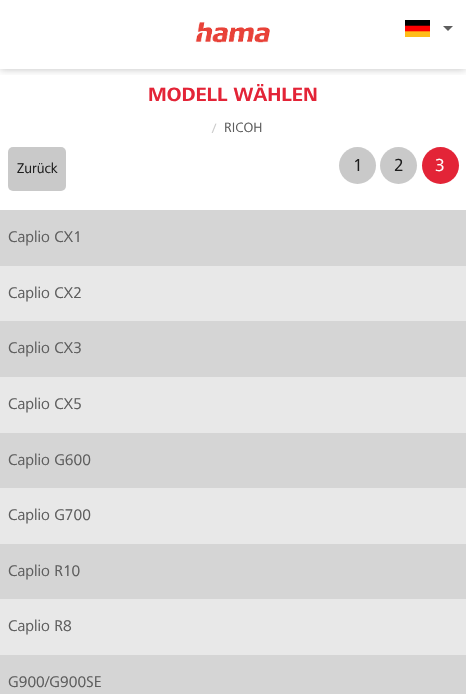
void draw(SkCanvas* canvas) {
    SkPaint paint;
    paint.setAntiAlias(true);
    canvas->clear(0xFFFFFFFF);
    canvas->save();
    canvas->clipRect(SkRect::MakeXYWH(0, 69, 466, 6));
    paint.setColor(0x40000000);
    paint.setMaskFilter(SkMaskFilter::MakeBlur(kNormal_SkBlurStyle, 4));
    canvas->drawRect(SkRect::MakeXYWH(0, 0, 466, 69), paint);
    paint.setMaskFilter(nullptr);
    canvas->restore();
    canvas->drawImageRect(SkImages::DeferredFromEncodedData(SkData::MakeFromFileName("img1.png")), SkRect::MakeXYWH(195, 22, 75, 21), SkSamplingOptions());
    canvas->drawImageRect(SkImages::DeferredFromEncodedData(SkData::MakeFromFileName("img2.png")), SkRect::MakeXYWH(405, 20, 25, 17), SkSamplingOptions());
    paint.setColor(0xFF5E5E5E);
    canvas->drawPath(SkPathBuilder().moveTo(443, 26).lineTo(453, 26).lineTo(448, 31).close().detach(), paint);
    SkFont font1(fontMgr->matchFamilyStyle("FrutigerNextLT", SkFontStyle::Bold()), 20);
    font1.setSubpixel(true);
    paint.setColor(0xFFE32437);
    canvas->drawString("MODELL WÄHLEN", 148, 101, font1, paint);
    SkFont font2(fontMgr->matchFamilyStyle("FrutigerNextLT", SkFontStyle::Normal()), 14);
    font2.setSubpixel(true);
    paint.setColor(0xFFCACACA);
    canvas->drawString("/", 212, 133, font2, paint);
    paint.setColor(0xFF5E5E5E);
    canvas->drawString("RICOH", 224, 132, font2, paint);
    paint.setColor(0xFFC9C9C9);
    canvas->drawRoundRect(SkRect::MakeXYWH(8, 147, 58, 44), 5, 5, paint);
    SkFont font3(fontMgr->matchFamilyStyle("FrutigerNextLT", SkFontStyle::Normal()), 14.5f);
    font3.setSubpixel(true);
    paint.setColor(0xFF1D1D1D);
    canvas->drawString("Zurück", 17, 173, font3, paint);
    paint.setColor(0xFFC9C9C9);
    canvas->drawCircle(357.5f, 165.5f, 18.5f, paint);
    SkFont font4(fontMgr->matchFamilyStyle("FrutigerNextLT", SkFontStyle::Normal()), 18);
    font4.setSubpixel(true);
    paint.setColor(0xFF1D1D1D);
    canvas->drawString("1", 353, 171, font4, paint);
    paint.setColor(0xFFC9C9C9);
    canvas->drawCircle(398.5f, 165.5f, 18.5f, paint);
    paint.setColor(0xFF1D1D1D);
    canvas->drawString("2", 394, 171, font4, paint);
    paint.setColor(0xFFE32437);
    canvas->drawCircle(440.5f, 165.5f, 18.5f, paint);
    paint.setColor(0xFFFEFEFE);
    canvas->drawString("3", 435, 171, font4, paint);
    paint.setColor(0xFFD5D5D5);
    canvas->drawRect(SkRect::MakeXYWH(0, 210, 466, 56), paint);
    SkFont font5(fontMgr->matchFamilyStyle("FrutigerNextLT", SkFontStyle::Normal()), 16);
    font5.setSubpixel(true);
    paint.setColor(0xFF5E5E5E);
    canvas->drawString("Caplio CX1", 8, 242, font5, paint);
    paint.setColor(0xFFE8E8E8);
    canvas->drawRect(SkRect::MakeXYWH(0, 266, 466, 55), paint);
    paint.setColor(0xFF5E5E5E);
    canvas->drawString("Caplio CX2", 8, 298, font5, paint);
    paint.setColor(0xFFD5D5D5);
    canvas->drawRect(SkRect::MakeXYWH(0, 321, 466, 56), paint);
    paint.setColor(0xFF5E5E5E);
    canvas->drawString("Caplio CX3", 8, 353, font5, paint);
    paint.setColor(0xFFE8E8E8);
    canvas->drawRect(SkRect::MakeXYWH(0, 377, 466, 56), paint);
    paint.setColor(0xFF5E5E5E);
    canvas->drawString("Caplio CX5", 8, 409, font5, paint);
    paint.setColor(0xFFD5D5D5);
    canvas->drawRect(SkRect::MakeXYWH(0, 433, 466, 55), paint);
    paint.setColor(0xFF5E5E5E);
    canvas->drawString("Caplio G600", 8, 465, font5, paint);
    paint.setColor(0xFFE8E8E8);
    canvas->drawRect(SkRect::MakeXYWH(0, 488, 466, 56), paint);
    paint.setColor(0xFF5E5E5E);
    canvas->drawString("Caplio G700", 8, 520, font5, paint);
    paint.setColor(0xFFD5D5D5);
    canvas->drawRect(SkRect::MakeXYWH(0, 544, 466, 55), paint);
    paint.setColor(0xFF5E5E5E);
    canvas->drawString("Caplio R10", 8, 576, font5, paint);
    paint.setColor(0xFFE8E8E8);
    canvas->drawRect(SkRect::MakeXYWH(0, 599, 466, 56), paint);
    paint.setColor(0xFF5E5E5E);
    canvas->drawString("Caplio R8", 8, 631, font5, paint);
    paint.setColor(0xFFD5D5D5);
    canvas->drawRect(SkRect::MakeXYWH(0, 655, 466, 39), paint);
    paint.setColor(0xFF5E5E5E);
    canvas->drawString("G900/G900SE", 8, 687, font5, paint);
}
